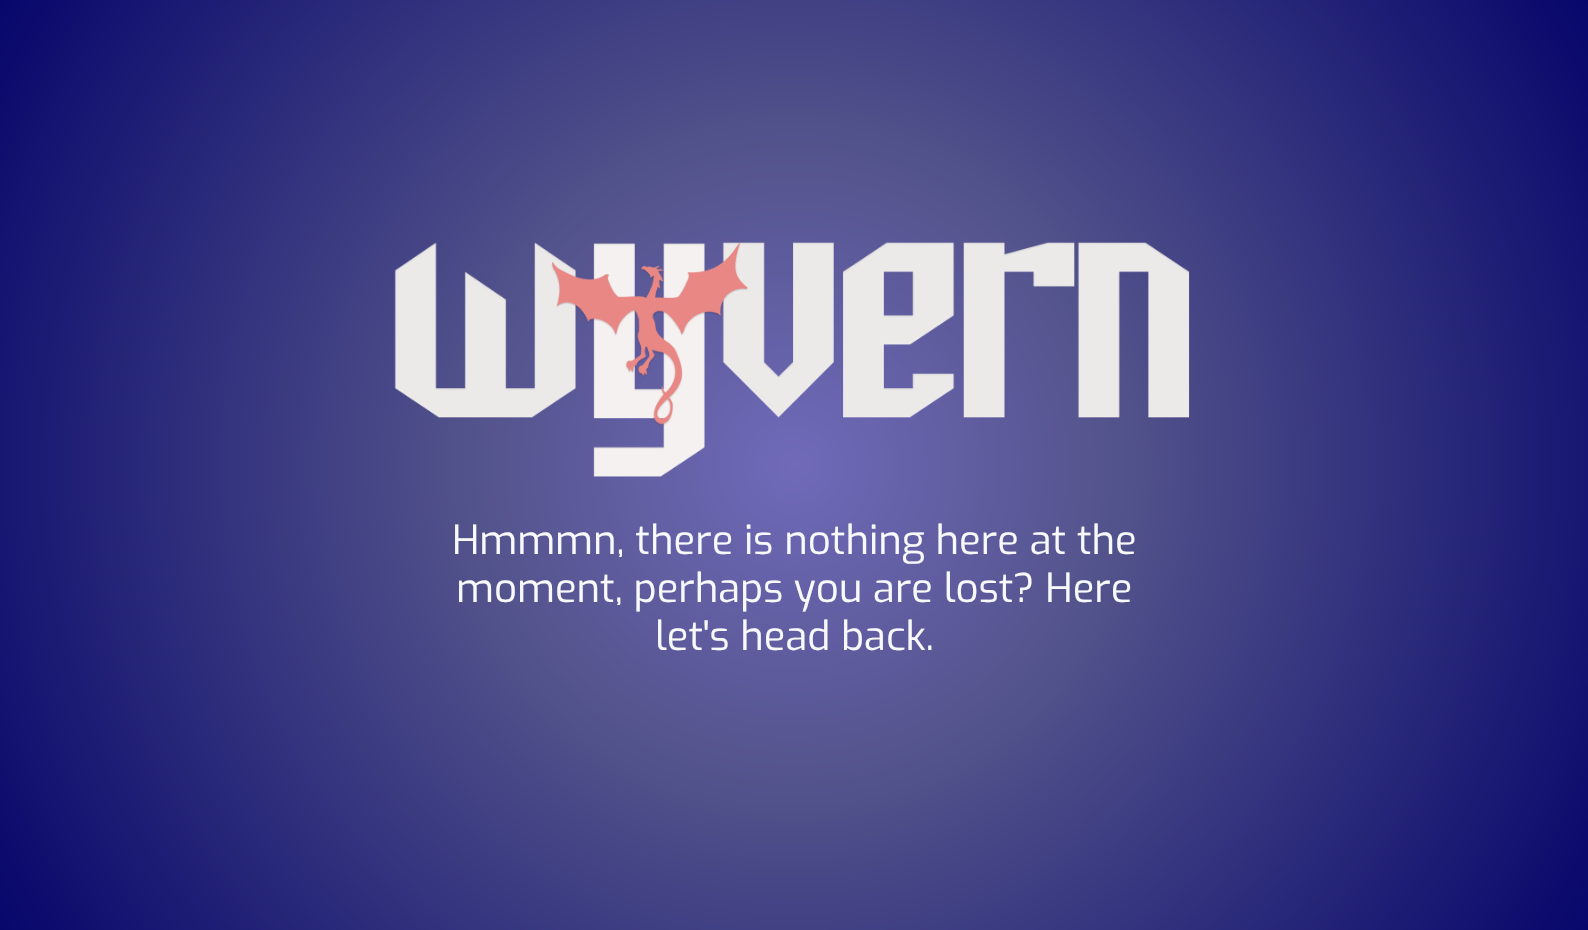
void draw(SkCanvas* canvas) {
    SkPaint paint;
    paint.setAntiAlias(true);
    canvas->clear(0xFFFFFFFF);
    {
        const SkColor colors[] = {0xFF706AB9, 0xFF53538C, 0xFF07066B};
        const float stops[] = {0, 0.35f, 1};
        paint.setShader(SkGradientShader::MakeRadial({794, 465}, 920, colors, stops, 3, SkTileMode::kClamp));
        paint.setAlpha(255);
    }
    canvas->drawRect(SkRect::MakeXYWH(0, 0, 1588, 930), paint);
    canvas->drawImageRect(SkImages::DeferredFromEncodedData(SkData::MakeFromFileName("img1.png")), SkRect::MakeXYWH(394, 242, 796, 235), SkSamplingOptions());
    SkFont font1(fontMgr->matchFamilyStyle("Exo", SkFontStyle::Normal()), 40);
    font1.setSubpixel(true);
    paint.setShader(nullptr);
    paint.setColor(0xFFF8F9FA);
    canvas->drawString("Hmmmn, there is nothing here at the", 452, 554, font1, paint);
    canvas->drawString("moment, perhaps you are lost? Here", 456, 602, font1, paint);
    canvas->drawString("let's head back.", 655, 650, font1, paint);
}
